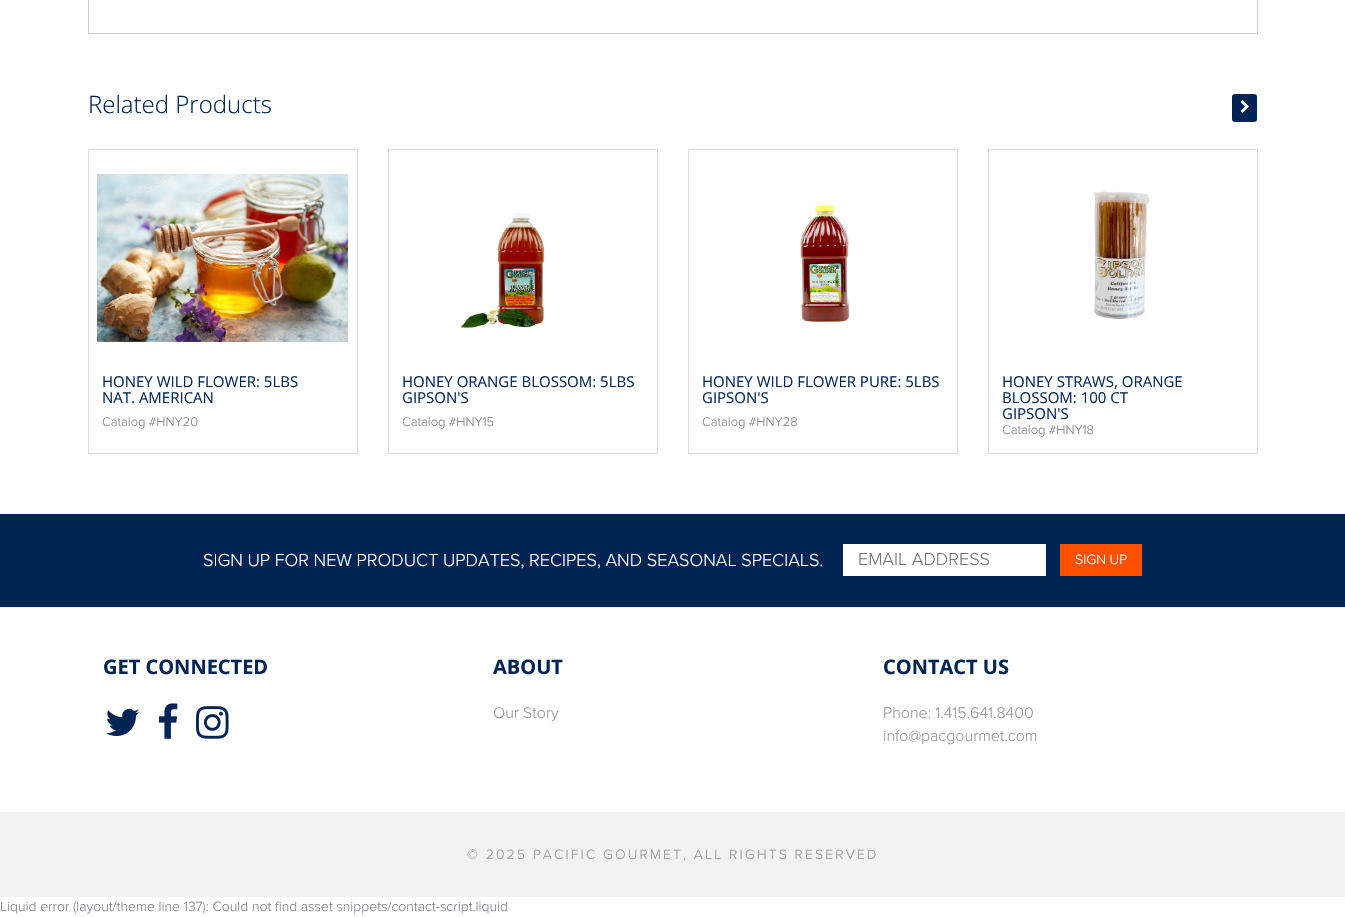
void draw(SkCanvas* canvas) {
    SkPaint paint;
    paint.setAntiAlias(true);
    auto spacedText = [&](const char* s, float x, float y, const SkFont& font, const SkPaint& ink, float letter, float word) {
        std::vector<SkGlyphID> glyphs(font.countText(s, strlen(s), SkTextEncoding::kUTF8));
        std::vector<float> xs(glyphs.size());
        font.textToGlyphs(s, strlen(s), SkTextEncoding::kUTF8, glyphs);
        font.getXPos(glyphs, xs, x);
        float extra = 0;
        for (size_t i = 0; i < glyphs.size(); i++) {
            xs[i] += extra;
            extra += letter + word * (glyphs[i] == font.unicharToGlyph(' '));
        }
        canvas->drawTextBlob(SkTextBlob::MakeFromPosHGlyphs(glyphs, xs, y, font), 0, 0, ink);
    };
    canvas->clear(0xFFFFFFFF);
    paint.setStyle(SkPaint::kStroke_Style);
    paint.setStrokeWidth(1);
    paint.setColor(0xFFCCCCCC);
    canvas->drawRect(SkRect::MakeXYWH(88.5f, -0.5f, 1169, 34), paint);
    SkFont font1(fontMgr->matchFamilyStyle("Open Sans", SkFontStyle(300, SkFontStyle::kNormal_Width, SkFontStyle::kUpright_Slant)), 24);
    font1.setSubpixel(true);
    paint.setStyle(SkPaint::kFill_Style);
    paint.setColor(0xFF002453);
    canvas->drawString("Related Products", 88, 113, font1, paint);
    canvas->drawRoundRect(SkRect::MakeXYWH(1232, 94, 25, 28), 3, 3, paint);
    canvas->drawImageRect(SkImages::DeferredFromEncodedData(SkData::MakeFromFileName("img1.png")), SkRect::MakeXYWH(1240, 100, 9, 13), SkSamplingOptions());
    paint.setStyle(SkPaint::kStroke_Style);
    paint.setColor(0xFFDDDDDD);
    canvas->drawRect(SkRect::MakeXYWH(88.5f, 149.5f, 269, 304), paint);
    canvas->drawImageRect(SkImages::DeferredFromEncodedData(SkData::MakeFromFileName("img2.png")), SkRect::MakeXYWH(97, 174, 251, 168), SkSamplingOptions());
    SkFont font2(fontMgr->matchFamilyStyle("Open Sans", SkFontStyle::Normal()), 15);
    font2.setSubpixel(true);
    paint.setStyle(SkPaint::kFill_Style);
    paint.setColor(0xFF092A57);
    canvas->drawString("HONEY WILD FLOWER: 5LBS", 102, 387, font2, paint);
    canvas->drawString("NAT. AMERICAN", 102, 403, font2, paint);
    SkFont font3(fontMgr->matchFamilyStyle("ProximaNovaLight", SkFontStyle(300, SkFontStyle::kNormal_Width, SkFontStyle::kUpright_Slant)), 13);
    font3.setSubpixel(true);
    paint.setColor(0xFF7E7F84);
    canvas->drawString("Catalog #HNY20", 102, 426, font3, paint);
    paint.setStyle(SkPaint::kStroke_Style);
    paint.setColor(0xFFDDDDDD);
    canvas->drawRect(SkRect::MakeXYWH(388.5f, 149.5f, 269, 304), paint);
    canvas->drawImageRect(SkImages::DeferredFromEncodedData(SkData::MakeFromFileName("img3.png")), SkRect::MakeXYWH(460, 213, 85, 115), SkSamplingOptions());
    paint.setStyle(SkPaint::kFill_Style);
    paint.setColor(0xFF092A57);
    canvas->drawString("HONEY ORANGE BLOSSOM: 5LBS", 402, 387, font2, paint);
    canvas->drawString("GIPSON'S", 402, 403, font2, paint);
    paint.setColor(0xFF7E7F84);
    canvas->drawString("Catalog #HNY15", 402, 426, font3, paint);
    paint.setStyle(SkPaint::kStroke_Style);
    paint.setColor(0xFFDDDDDD);
    canvas->drawRect(SkRect::MakeXYWH(688.5f, 149.5f, 269, 304), paint);
    canvas->drawImageRect(SkImages::DeferredFromEncodedData(SkData::MakeFromFileName("img4.png")), SkRect::MakeXYWH(800, 204, 50, 119), SkSamplingOptions());
    paint.setStyle(SkPaint::kFill_Style);
    paint.setColor(0xFF092A57);
    canvas->drawString("HONEY WILD FLOWER PURE: 5LBS", 702, 387, font2, paint);
    canvas->drawString("GIPSON'S", 702, 403, font2, paint);
    paint.setColor(0xFF7E7F84);
    canvas->drawString("Catalog #HNY28", 702, 426, font3, paint);
    paint.setStyle(SkPaint::kStroke_Style);
    paint.setColor(0xFFDDDDDD);
    canvas->drawRect(SkRect::MakeXYWH(988.5f, 149.5f, 269, 304), paint);
    canvas->drawImageRect(SkImages::DeferredFromEncodedData(SkData::MakeFromFileName("img5.png")), SkRect::MakeXYWH(1094, 191, 56, 128), SkSamplingOptions());
    paint.setStyle(SkPaint::kFill_Style);
    paint.setColor(0xFF092A57);
    canvas->drawString("HONEY STRAWS, ORANGE", 1002, 387, font2, paint);
    canvas->drawString("BLOSSOM: 100 CT", 1002, 403, font2, paint);
    canvas->drawString("GIPSON'S", 1002, 419, font2, paint);
    paint.setColor(0xFF7E7F84);
    canvas->drawString("Catalog #HNY18", 1002, 434, font3, paint);
    paint.setColor(0xFF002453);
    canvas->drawRect(SkRect::MakeXYWH(0, 514, 1345, 93), paint);
    SkFont font4(fontMgr->matchFamilyStyle("ProximaNovaLight", SkFontStyle(300, SkFontStyle::kNormal_Width, SkFontStyle::kUpright_Slant)), 18);
    font4.setSubpixel(true);
    paint.setColor(0xFFFFFFFF);
    canvas->drawString("SIGN UP FOR NEW PRODUCT UPDATES, RECIPES, AND SEASONAL SPECIALS.", 203, 566, font4, paint);
    canvas->drawRect(SkRect::MakeXYWH(843, 544, 203, 32), paint);
    paint.setColor(0xFF757575);
    canvas->drawString("EMAIL ADDRESS", 858, 565, font4, paint);
    paint.setColor(0xFFFF5000);
    canvas->drawRect(SkRect::MakeXYWH(1060, 544, 82, 32), paint);
    SkFont font5(fontMgr->matchFamilyStyle("ProximaNovaLight", SkFontStyle(300, SkFontStyle::kNormal_Width, SkFontStyle::kUpright_Slant)), 14);
    font5.setSubpixel(true);
    paint.setColor(0xFFFFFFFF);
    canvas->drawString("SIGN UP", 1075, 564, font5, paint);
    paint.setColor(0xFFECEFEF);
    canvas->drawRect(SkRect::MakeXYWH(0, 607, 1345, 1), paint);
    SkFont font6(fontMgr->matchFamilyStyle("Open Sans", SkFontStyle::Bold()), 20);
    font6.setSubpixel(true);
    paint.setColor(0xFF002453);
    canvas->drawString("GET CONNECTED", 103, 674, font6, paint);
    canvas->drawImageRect(SkImages::DeferredFromEncodedData(SkData::MakeFromFileName("img6.png")), SkRect::MakeXYWH(106, 708, 34, 28), SkSamplingOptions());
    canvas->drawImageRect(SkImages::DeferredFromEncodedData(SkData::MakeFromFileName("img7.png")), SkRect::MakeXYWH(159, 703, 19, 36), SkSamplingOptions());
    canvas->drawImageRect(SkImages::DeferredFromEncodedData(SkData::MakeFromFileName("img8.png")), SkRect::MakeXYWH(196, 706, 33, 33), SkSamplingOptions());
    canvas->drawString("ABOUT", 493, 674, font6, paint);
    SkFont font7(fontMgr->matchFamilyStyle("ProximaNovaLight", SkFontStyle(300, SkFontStyle::kNormal_Width, SkFontStyle::kUpright_Slant)), 16);
    font7.setSubpixel(true);
    paint.setColor(0xFF939598);
    canvas->drawString("Our Story", 493, 718, font7, paint);
    paint.setColor(0xFF002453);
    canvas->drawString("CONTACT US", 883, 674, font6, paint);
    paint.setColor(0xFF939598);
    canvas->drawString("Phone: 1.415.641.8400", 883, 718, font7, paint);
    canvas->drawString("info@pacgourmet.com", 883, 741, font7, paint);
    paint.setColor(0xFFF1F2F2);
    canvas->drawRect(SkRect::MakeXYWH(0, 812, 1345, 85), paint);
    paint.setColor(0xFF939598);
    spacedText("© 2025 PACIFIC GOURMET, ALL RIGHTS RESERVED", 467, 859, font5, paint, 2.1f, 0);
    paint.setColor(0xFF7E7F84);
    canvas->drawString("Liquid error (layout/theme line 137): Could not find asset snippets/contact-script.liquid", 0, 911, font5, paint);
}
